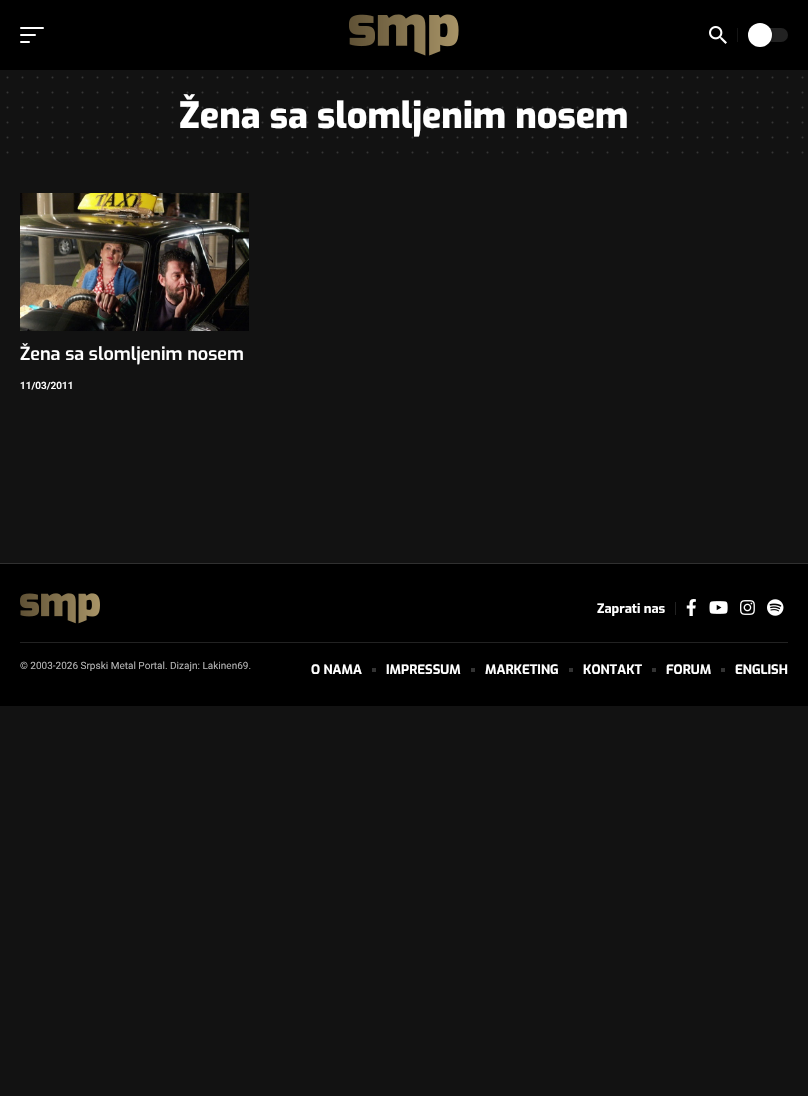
void draw(SkCanvas* canvas) {
    SkPaint paint;
    paint.setAntiAlias(true);
    canvas->clear(0xFF121212);
    paint.setColor(0xFF000000);
    canvas->drawRect(SkRect::MakeXYWH(0, 0, 808, 70), paint);
    paint.setColor(0xFFFFFFFF);
    canvas->drawRoundRect(SkRect::MakeXYWH(20, 27, 24, 2), 1, 1, paint);
    canvas->drawRoundRect(SkRect::MakeXYWH(20, 34, 16, 2), 1, 1, paint);
    canvas->drawRoundRect(SkRect::MakeXYWH(20, 41, 10, 2), 1, 1, paint);
    canvas->drawImageRect(SkImages::DeferredFromEncodedData(SkData::MakeFromFileName("img1.png")), SkRect::MakeXYWH(349, 14, 110, 42), SkSamplingOptions());
    canvas->drawImageRect(SkImages::DeferredFromEncodedData(SkData::MakeFromFileName("img2.png")), SkRect::MakeXYWH(709, 26, 18, 18), SkSamplingOptions());
    paint.setColor(0xFF151515);
    canvas->drawRect(SkRect::MakeXYWH(737, 28, 1, 14), paint);
    paint.setColor(0xFF222222);
    canvas->drawRoundRect(SkRect::MakeXYWH(748, 28, 40, 14), 7, 7, paint);
    paint.setColor(0x66000000);
    paint.setMaskFilter(SkMaskFilter::MakeBlur(kNormal_SkBlurStyle, 2));
    canvas->drawRoundRect(SkRect::MakeXYWH(748, 24, 24, 24), 12, 12, paint);
    paint.setMaskFilter(nullptr);
    paint.setColor(0xFFFFFFFF);
    canvas->drawCircle(760, 35, 12, paint);
    paint.setStyle(SkPaint::kStroke_Style);
    paint.setStrokeWidth(2);
    paint.setStrokeCap(SkPaint::kRound_Cap);
    paint.setColor(0xFF363636);
    paint.setPathEffect(SkDashPathEffect::Make({{0, 15}}, 0));
    canvas->drawPath(SkPathBuilder().moveTo(7.5f, 77.5f).lineTo(802.7f, 77.5f).detach(), paint);
    paint.setPathEffect(nullptr);
    paint.setPathEffect(SkDashPathEffect::Make({{0, 15}}, 0));
    canvas->drawPath(SkPathBuilder().moveTo(7.5f, 92.5f).lineTo(802.7f, 92.5f).detach(), paint);
    paint.setPathEffect(nullptr);
    paint.setPathEffect(SkDashPathEffect::Make({{0, 15}}, 0));
    canvas->drawPath(SkPathBuilder().moveTo(7.5f, 107.5f).lineTo(802.7f, 107.5f).detach(), paint);
    paint.setPathEffect(nullptr);
    paint.setPathEffect(SkDashPathEffect::Make({{0, 15}}, 0));
    canvas->drawPath(SkPathBuilder().moveTo(7.5f, 122.5f).lineTo(802.7f, 122.5f).detach(), paint);
    paint.setPathEffect(nullptr);
    paint.setPathEffect(SkDashPathEffect::Make({{0, 15}}, 0));
    canvas->drawPath(SkPathBuilder().moveTo(7.5f, 137.5f).lineTo(802.7f, 137.5f).detach(), paint);
    paint.setPathEffect(nullptr);
    paint.setPathEffect(SkDashPathEffect::Make({{0, 15}}, 0));
    canvas->drawPath(SkPathBuilder().moveTo(7.5f, 152.5f).lineTo(802.7f, 152.5f).detach(), paint);
    paint.setPathEffect(nullptr);
    SkFont font1(fontMgr->matchFamilyStyle("Exo", SkFontStyle(800, SkFontStyle::kNormal_Width, SkFontStyle::kUpright_Slant)), 36);
    font1.setSubpixel(true);
    paint.setStyle(SkPaint::kFill_Style);
    paint.setColor(0xFFFFFFFF);
    canvas->drawString("Žena sa slomljenim nosem", 179, 128, font1, paint);
    canvas->drawImageRect(SkImages::DeferredFromEncodedData(SkData::MakeFromFileName("img3.png")), SkRect::MakeXYWH(20, 193, 229, 138), SkSamplingOptions());
    SkFont font2(fontMgr->matchFamilyStyle("Exo", SkFontStyle(600, SkFontStyle::kNormal_Width, SkFontStyle::kUpright_Slant)), 18);
    font2.setSubpixel(true);
    canvas->drawString("Žena sa slomljenim nosem", 20, 360, font2, paint);
    SkFont font3(fontMgr->matchFamilyStyle("Heebo", SkFontStyle(600, SkFontStyle::kNormal_Width, SkFontStyle::kUpright_Slant)), 10);
    font3.setSubpixel(true);
    canvas->drawString("11/03/2011", 20, 389, font3, paint);
    paint.setColor(0xFF303030);
    canvas->drawRect(SkRect::MakeXYWH(0, 563, 808, 1), paint);
    paint.setColor(0xFF000000);
    canvas->drawRect(SkRect::MakeXYWH(0, 564, 808, 142), paint);
    canvas->drawImageRect(SkImages::DeferredFromEncodedData(SkData::MakeFromFileName("img4.png")), SkRect::MakeXYWH(20, 593, 80, 31), SkSamplingOptions());
    paint.setColor(0xFF222222);
    canvas->drawRect(SkRect::MakeXYWH(675, 602, 1, 13), paint);
    SkFont font4(fontMgr->matchFamilyStyle("Exo", SkFontStyle::Bold()), 13);
    font4.setSubpixel(true);
    paint.setColor(0xFFFFFFFF);
    canvas->drawString("Zaprati nas", 597, 613, font4, paint);
    canvas->drawImageRect(SkImages::DeferredFromEncodedData(SkData::MakeFromFileName("img5.png")), SkRect::MakeXYWH(686, 599, 10, 17), SkSamplingOptions());
    canvas->drawImageRect(SkImages::DeferredFromEncodedData(SkData::MakeFromFileName("img6.png")), SkRect::MakeXYWH(709, 601, 19, 13), SkSamplingOptions());
    canvas->drawImageRect(SkImages::DeferredFromEncodedData(SkData::MakeFromFileName("img7.png")), SkRect::MakeXYWH(740, 600, 15, 15), SkSamplingOptions());
    canvas->drawImageRect(SkImages::DeferredFromEncodedData(SkData::MakeFromFileName("img8.png")), SkRect::MakeXYWH(767, 599, 17, 17), SkSamplingOptions());
    paint.setColor(0xFF222222);
    canvas->drawRect(SkRect::MakeXYWH(20, 642, 768, 1), paint);
    SkFont font5(fontMgr->matchFamilyStyle("Heebo", SkFontStyle::Normal()), 10);
    font5.setSubpixel(true);
    paint.setColor(0xFFB3B3B3);
    canvas->drawString("© 2003-2026 Srpski Metal Portal. Dizajn: Lakinen69.", 20, 669, font5, paint);
    paint.setColor(0xFFFFFFFF);
    canvas->drawString("O NAMA", 311, 674, font4, paint);
    paint.setColor(0xFF333333);
    canvas->drawRect(SkRect::MakeXYWH(372, 668, 4, 4), paint);
    paint.setColor(0xFFFFFFFF);
    canvas->drawString("IMPRESSUM", 386, 674, font4, paint);
    paint.setColor(0xFF333333);
    canvas->drawRect(SkRect::MakeXYWH(471, 668, 4, 4), paint);
    paint.setColor(0xFFFFFFFF);
    canvas->drawString("MARKETING", 485, 674, font4, paint);
    paint.setColor(0xFF333333);
    canvas->drawRect(SkRect::MakeXYWH(569, 668, 4, 4), paint);
    paint.setColor(0xFFFFFFFF);
    canvas->drawString("KONTAKT", 583, 674, font4, paint);
    paint.setColor(0xFF333333);
    canvas->drawRect(SkRect::MakeXYWH(652, 668, 4, 4), paint);
    paint.setColor(0xFFFFFFFF);
    canvas->drawString("FORUM", 666, 674, font4, paint);
    paint.setColor(0xFF333333);
    canvas->drawRect(SkRect::MakeXYWH(721, 668, 4, 4), paint);
    paint.setColor(0xFFFFFFFF);
    canvas->drawString("ENGLISH", 735, 674, font4, paint);
}
